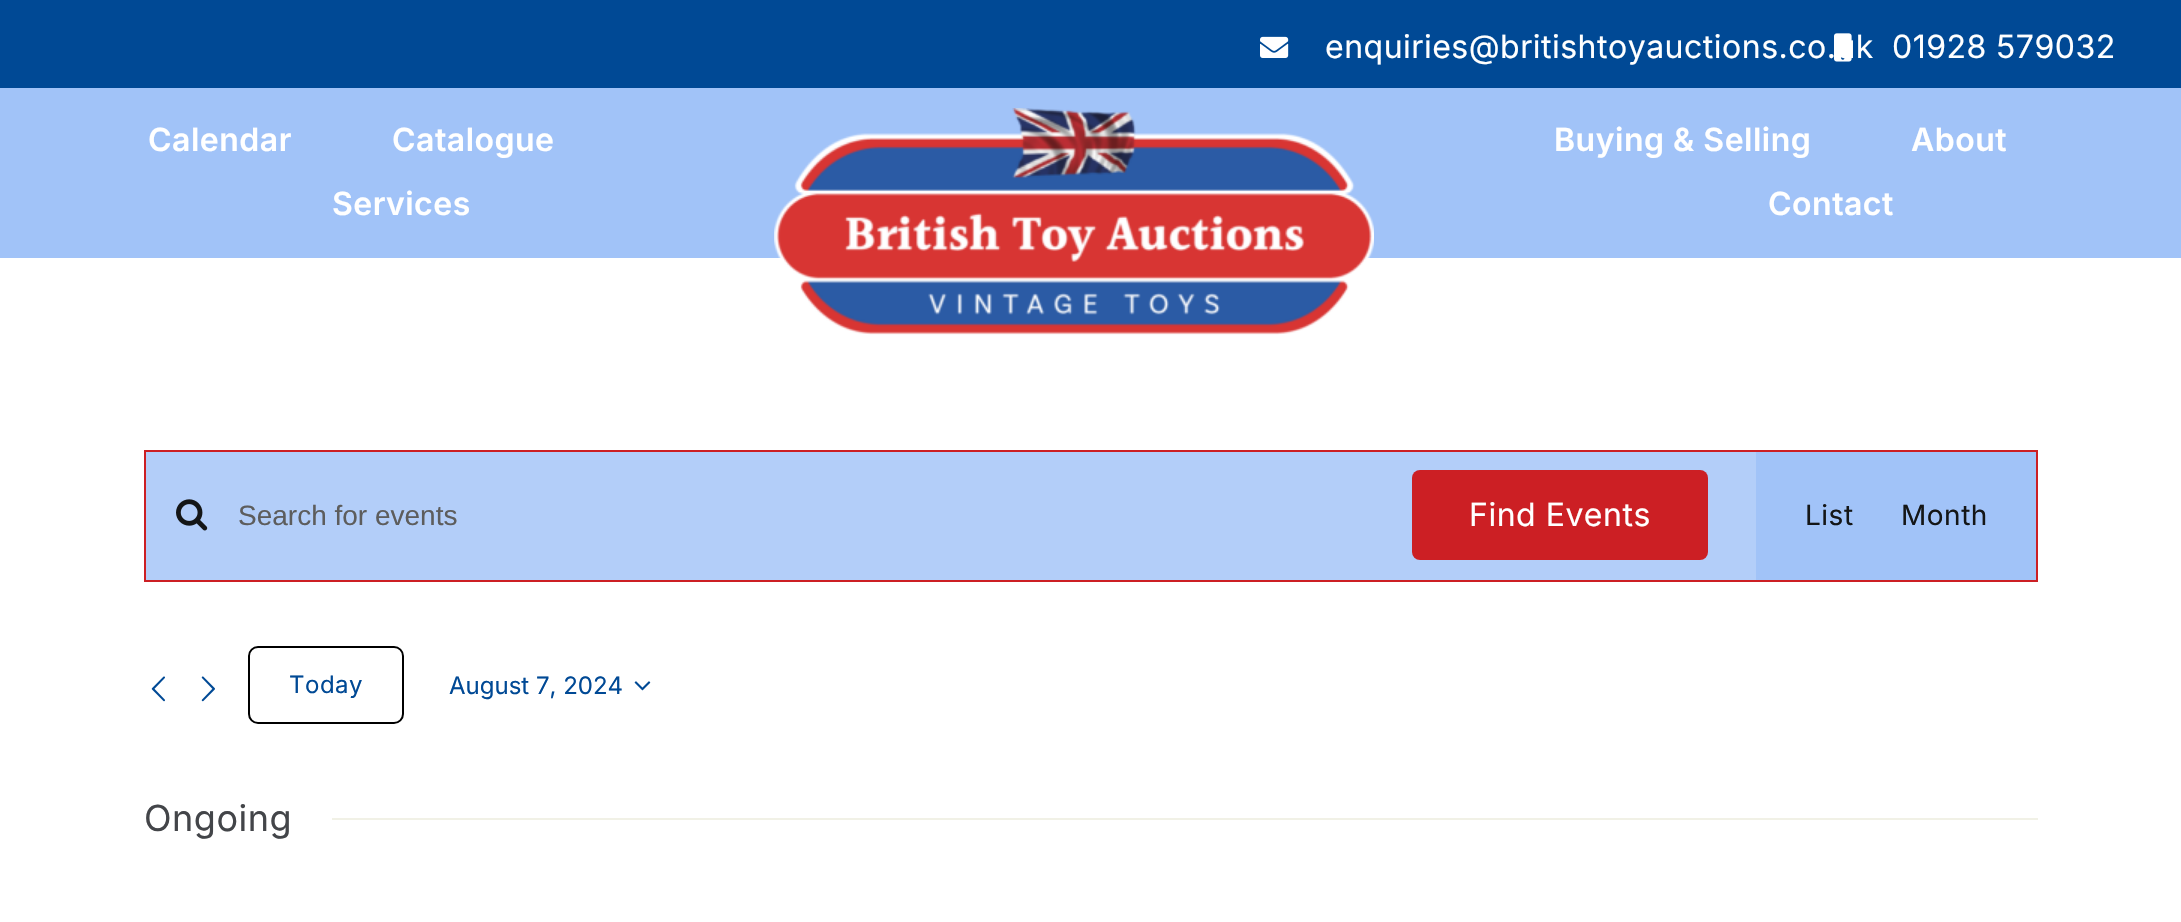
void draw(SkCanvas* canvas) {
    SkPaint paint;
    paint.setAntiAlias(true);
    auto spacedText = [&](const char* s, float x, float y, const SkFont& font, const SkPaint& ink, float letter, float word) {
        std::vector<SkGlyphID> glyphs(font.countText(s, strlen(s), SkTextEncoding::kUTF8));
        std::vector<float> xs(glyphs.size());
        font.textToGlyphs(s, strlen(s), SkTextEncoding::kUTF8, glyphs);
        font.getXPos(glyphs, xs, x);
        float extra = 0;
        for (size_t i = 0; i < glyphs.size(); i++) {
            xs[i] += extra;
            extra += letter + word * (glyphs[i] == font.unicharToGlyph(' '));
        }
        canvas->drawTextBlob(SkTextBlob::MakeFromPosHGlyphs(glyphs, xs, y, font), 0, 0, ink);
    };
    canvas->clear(0xFFFFFFFF);
    paint.setColor(0xFF004995);
    canvas->drawRect(SkRect::MakeXYWH(0, 0, 2181, 88), paint);
    canvas->drawImageRect(SkImages::DeferredFromEncodedData(SkData::MakeFromFileName("img1.png")), SkRect::MakeXYWH(1260, 36, 29, 22), SkSamplingOptions());
    SkFont font1(fontMgr->matchFamilyStyle("Inter", SkFontStyle::Normal()), 32);
    font1.setSubpixel(true);
    paint.setColor(0xFFFFFFFF);
    spacedText("enquiries@britishtoyauctions.co.uk", 1325, 58, font1, paint, 0.5f, 0);
    canvas->drawImageRect(SkImages::DeferredFromEncodedData(SkData::MakeFromFileName("img2.png")), SkRect::MakeXYWH(1834, 33, 18, 29), SkSamplingOptions());
    spacedText("01928 579032", 1892, 58, font1, paint, 0.5f, 0);
    paint.setColor(0xFFA1C3F8);
    canvas->drawRect(SkRect::MakeXYWH(0, 88, 2181, 170), paint);
    SkFont font2(fontMgr->matchFamilyStyle("Inter", SkFontStyle(600, SkFontStyle::kNormal_Width, SkFontStyle::kUpright_Slant)), 32);
    font2.setSubpixel(true);
    paint.setColor(0xFFFFFFFF);
    spacedText("Calendar", 148, 151, font2, paint, 0.5f, 0);
    spacedText("Catalogue", 392, 151, font2, paint, 0.5f, 0);
    spacedText("Services", 332, 215, font2, paint, 0.5f, 0);
    canvas->drawImageRect(SkImages::DeferredFromEncodedData(SkData::MakeFromFileName("img3.png")), SkRect::MakeXYWH(774, 108, 600, 227), SkSamplingOptions());
    spacedText("Buying & Selling", 1554, 151, font2, paint, 0.5f, 0);
    spacedText("About", 1911, 151, font2, paint, 0.5f, 0);
    spacedText("Contact", 1768, 215, font2, paint, 0.5f, 0);
    paint.setColor(0xFFB3CEF9);
    canvas->drawRect(SkRect::MakeXYWH(146, 452, 1610, 128), paint);
    paint.setStyle(SkPaint::kStroke_Style);
    paint.setStrokeWidth(2);
    paint.setColor(0xFFCC1F24);
    canvas->drawRect(SkRect::MakeXYWH(145, 451, 1892, 130), paint);
    canvas->drawImageRect(SkImages::DeferredFromEncodedData(SkData::MakeFromFileName("img4.png")), SkRect::MakeXYWH(176, 499, 32, 32), SkSamplingOptions());
    SkFont font3(fontMgr->matchFamilyStyle("Liberation Sans", SkFontStyle::Normal()), 28);
    font3.setSubpixel(true);
    paint.setStyle(SkPaint::kFill_Style);
    paint.setColor(0xFF5D5D5D);
    canvas->drawString("Search for events", 238, 525, font3, paint);
    paint.setColor(0xFFCC1F24);
    canvas->drawRoundRect(SkRect::MakeXYWH(1412, 470, 296, 90), 8, 8, paint);
    paint.setColor(0xFFFFFFFF);
    spacedText("Find Events", 1469, 526, font1, paint, 0.5f, 0);
    paint.setColor(0xFFA1C3F8);
    canvas->drawRect(SkRect::MakeXYWH(1756, 452, 280, 128), paint);
    SkFont font4(fontMgr->matchFamilyStyle("Inter", SkFontStyle::Normal()), 28);
    font4.setSubpixel(true);
    paint.setColor(0xFF141617);
    spacedText("List", 1805, 525, font4, paint, 0.5f, 0);
    spacedText("Month", 1901, 525, font4, paint, 0.5f, 0);
    canvas->drawImageRect(SkImages::DeferredFromEncodedData(SkData::MakeFromFileName("img5.png")), SkRect::MakeXYWH(151, 676, 14, 26), SkSamplingOptions());
    canvas->drawImageRect(SkImages::DeferredFromEncodedData(SkData::MakeFromFileName("img6.png")), SkRect::MakeXYWH(201, 676, 14, 26), SkSamplingOptions());
    paint.setStyle(SkPaint::kStroke_Style);
    paint.setColor(0xFF000000);
    canvas->drawRoundRect(SkRect::MakeXYWH(249, 647, 154, 76), 9, 9, paint);
    SkFont font5(fontMgr->matchFamilyStyle("Inter", SkFontStyle::Normal()), 24);
    font5.setSubpixel(true);
    paint.setStyle(SkPaint::kFill_Style);
    paint.setColor(0xFF004995);
    spacedText("Today", 289, 693, font5, paint, 0.5f, 0);
    canvas->drawString("August 7, 2024", 449, 694, font5, paint);
    canvas->drawImageRect(SkImages::DeferredFromEncodedData(SkData::MakeFromFileName("img7.png")), SkRect::MakeXYWH(634, 681, 17, 10), SkSamplingOptions());
    SkFont font6(fontMgr->matchFamilyStyle("Inter", SkFontStyle::Normal()), 36);
    font6.setSubpixel(true);
    paint.setColor(0xFF434549);
    spacedText("Ongoing", 144, 831, font6, paint, 0.5f, 0);
    paint.setColor(0xFFF1F1E6);
    canvas->drawRect(SkRect::MakeXYWH(332, 818, 1706, 2), paint);
}
